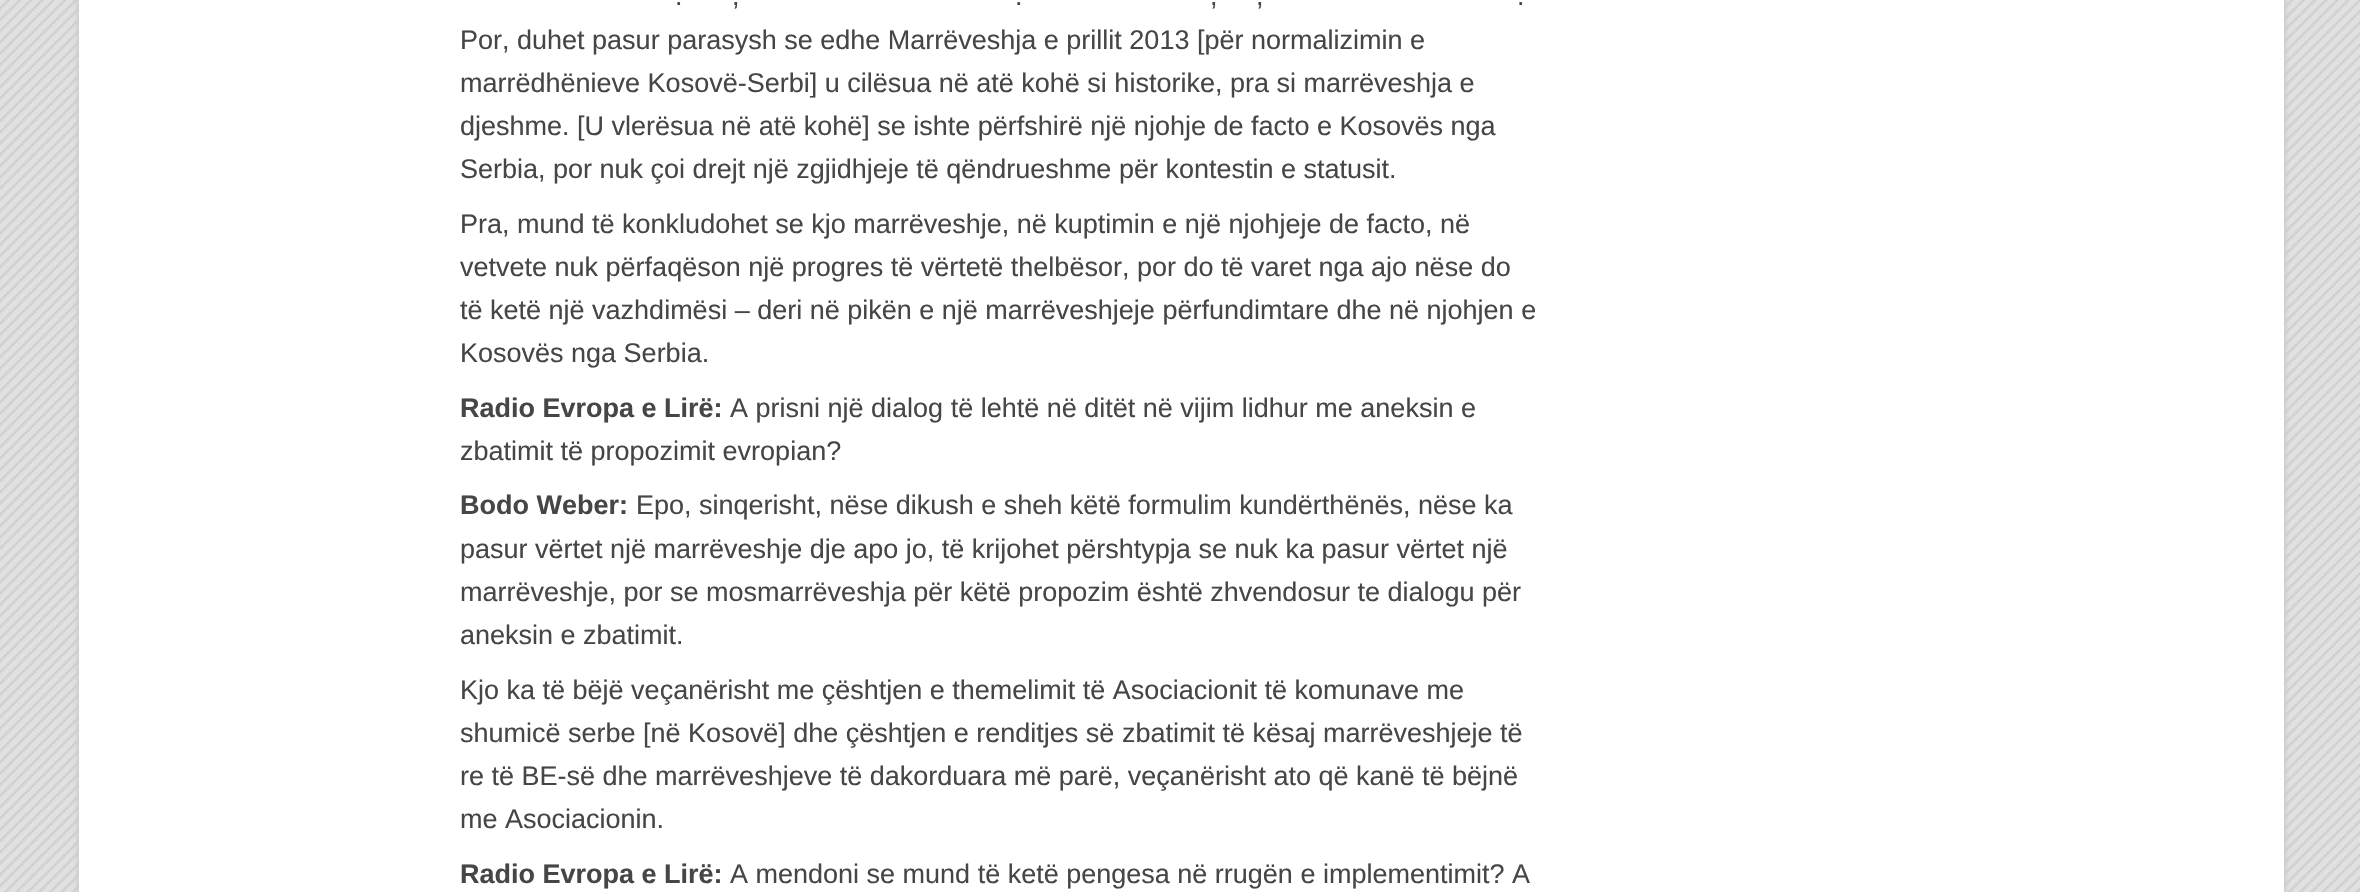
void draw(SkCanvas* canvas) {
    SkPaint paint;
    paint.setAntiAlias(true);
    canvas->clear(0xFFFFFFFF);
    canvas->drawImageRect(SkImages::DeferredFromEncodedData(SkData::MakeFromFileName("img1.png")), SkRect::MakeXYWH(0, 0, 2360, 892), SkSamplingOptions());
    paint.setColor(0xFFCCCCCC);
    paint.setMaskFilter(SkMaskFilter::MakeBlur(kNormal_SkBlurStyle, 2));
    canvas->drawRect(SkRect::MakeXYWH(77, -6, 2209, 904), paint);
    paint.setMaskFilter(nullptr);
    paint.setColor(0xFFFFFFFF);
    canvas->drawRect(SkRect::MakeXYWH(79, 0, 2205, 892), paint);
    SkFont font1(fontMgr->matchFamilyStyle("Liberation Sans", SkFontStyle::Normal()), 27);
    font1.setSubpixel(true);
    paint.setColor(0xFF464647);
    canvas->drawString(".", 675, 5, font1, paint);
    canvas->drawString(",", 732, 5, font1, paint);
    canvas->drawString(".", 1015, 5, font1, paint);
    canvas->drawString(",", 1210, 5, font1, paint);
    canvas->drawString(",", 1256, 5, font1, paint);
    canvas->drawString(".", 1517, 5, font1, paint);
    canvas->drawString("Por, duhet pasur parasysh se edhe Marrëveshja e prillit 2013 [për normalizimin e", 460, 49, font1, paint);
    canvas->drawString("marrëdhënieve Kosovë-Serbi] u cilësua në atë kohë si historike, pra si marrëveshja e", 460, 92, font1, paint);
    canvas->drawString("djeshme. [U vlerësua në atë kohë] se ishte përfshirë një njohje de facto e Kosovës nga", 460, 135, font1, paint);
    canvas->drawString("Serbia, por nuk çoi drejt një zgjidhjeje të qëndrueshme për kontestin e statusit.", 460, 178, font1, paint);
    canvas->drawString("Pra, mund të konkludohet se kjo marrëveshje, në kuptimin e një njohjeje de facto, në", 460, 233, font1, paint);
    canvas->drawString("vetvete nuk përfaqëson një progres të vërtetë thelbësor, por do të varet nga ajo nëse do", 460, 276, font1, paint);
    canvas->drawString("të ketë një vazhdimësi – deri në pikën e një marrëveshjeje përfundimtare dhe në njohjen e", 460, 319, font1, paint);
    canvas->drawString("Kosovës nga Serbia.", 460, 362, font1, paint);
    SkFont font2(fontMgr->matchFamilyStyle("Liberation Sans", SkFontStyle::Bold()), 27);
    font2.setSubpixel(true);
    canvas->drawString("Radio Evropa e Lirë:", 460, 417, font2, paint);
    canvas->drawString("A prisni një dialog të lehtë në ditët në vijim lidhur me aneksin e", 730, 417, font1, paint);
    canvas->drawString("zbatimit të propozimit evropian?", 460, 460, font1, paint);
    canvas->drawString("Bodo Weber:", 460, 514, font2, paint);
    canvas->drawString("Epo, sinqerisht, nëse dikush e sheh këtë formulim kundërthënës, nëse ka", 636, 514, font1, paint);
    canvas->drawString("pasur vërtet një marrëveshje dje apo jo, të krijohet përshtypja se nuk ka pasur vërtet një", 460, 558, font1, paint);
    canvas->drawString("marrëveshje, por se mosmarrëveshja për këtë propozim është zhvendosur te dialogu për", 460, 601, font1, paint);
    canvas->drawString("aneksin e zbatimit.", 460, 644, font1, paint);
    canvas->drawString("Kjo ka të bëjë veçanërisht me çështjen e themelimit të Asociacionit të komunave me", 460, 699, font1, paint);
    canvas->drawString("shumicë serbe [në Kosovë] dhe çështjen e renditjes së zbatimit të kësaj marrëveshjeje të", 460, 742, font1, paint);
    canvas->drawString("re të BE-së dhe marrëveshjeve të dakorduara më parë, veçanërisht ato që kanë të bëjnë", 460, 785, font1, paint);
    canvas->drawString("me Asociacionin.", 460, 828, font1, paint);
    canvas->drawString("Radio Evropa e Lirë:", 460, 883, font2, paint);
    canvas->drawString("A mendoni se mund të ketë pengesa në rrugën e implementimit? A", 730, 883, font1, paint);
}
